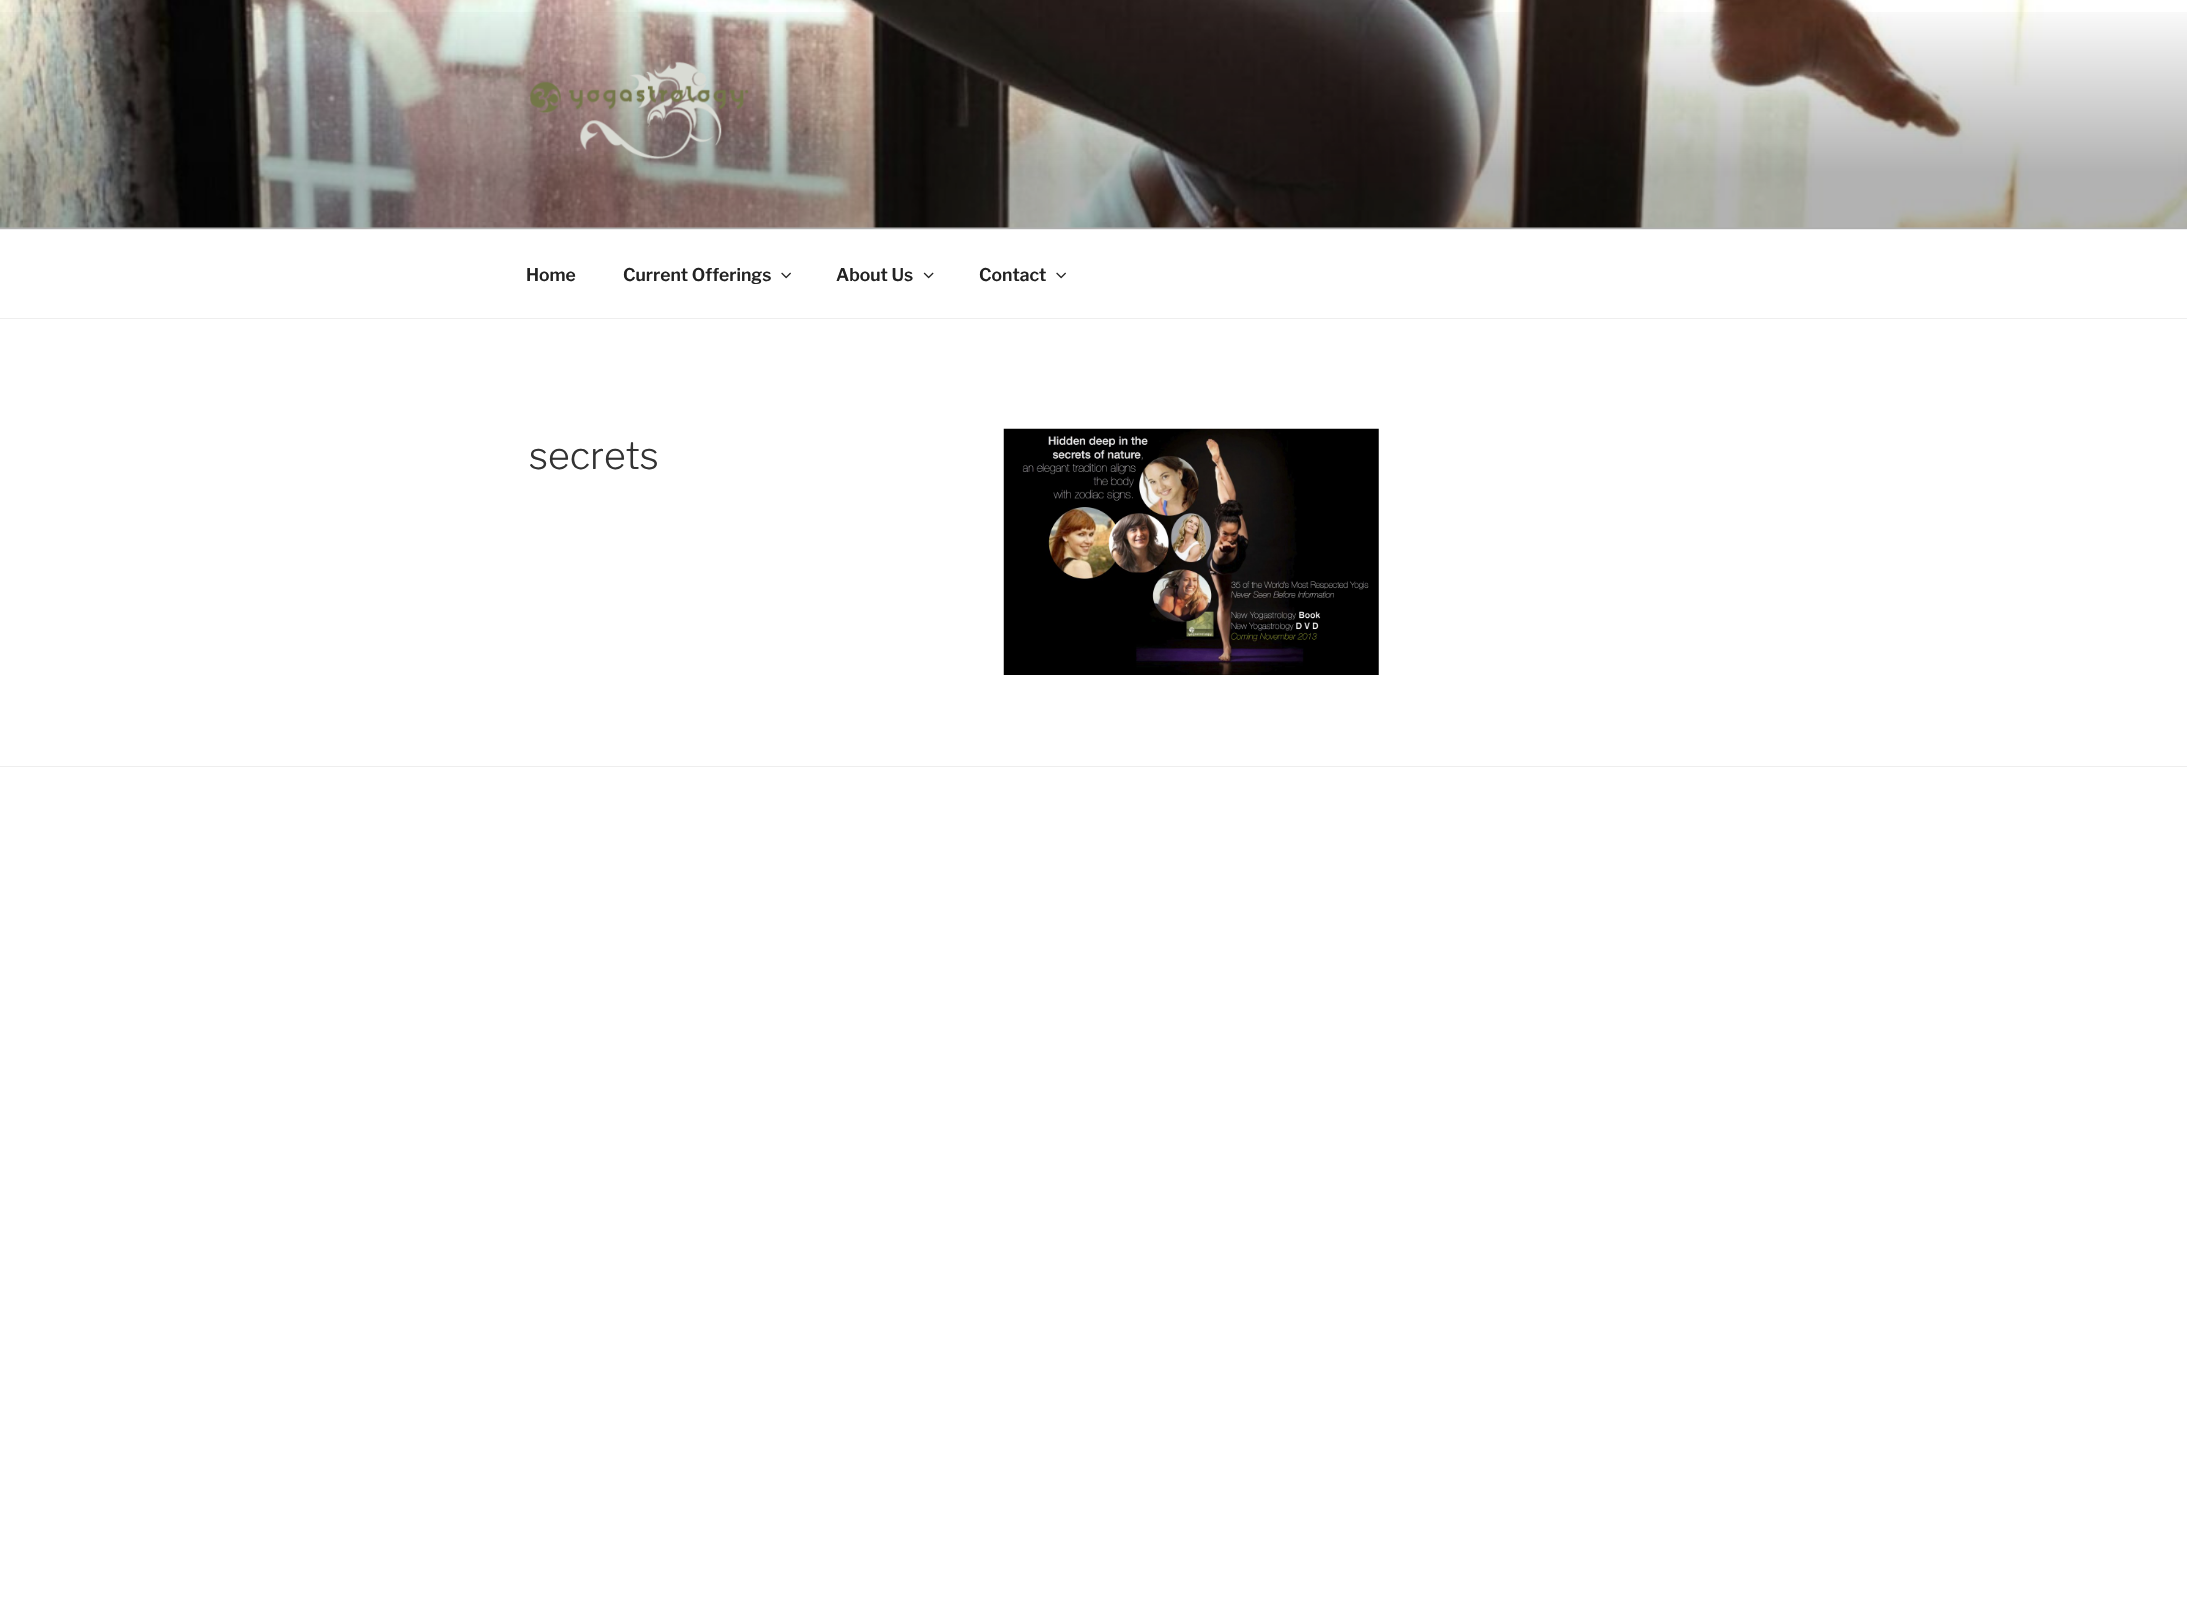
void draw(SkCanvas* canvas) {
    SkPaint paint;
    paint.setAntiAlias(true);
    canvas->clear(0xFFFFFFFF);
    paint.setColor(0xFFFAFAFA);
    canvas->drawRect(SkRect::MakeXYWH(0, 227, 2187, 2), paint);
    canvas->drawImageRect(SkImages::DeferredFromEncodedData(SkData::MakeFromFileName("img1.png")), SkRect::MakeXYWH(0, 0, 2187, 228), SkSamplingOptions());
    {
        const SkColor colors[] = {0x00000000, 0x4D000000, 0x4D000000};
        const float stops[] = {0, 0.75f, 1};
        const SkPoint ends[] = {{1094, 0}, {1094, 229}};
        paint.setShader(SkGradientShader::MakeLinear(ends, colors, stops, 3, SkTileMode::kClamp));
        paint.setAlpha(255);
    }
    canvas->drawRect(SkRect::MakeXYWH(0, 12, 2187, 217), paint);
    canvas->drawImageRect(SkImages::DeferredFromEncodedData(SkData::MakeFromFileName("img2.png")), SkRect::MakeXYWH(530, 61, 219, 98), SkSamplingOptions());
    paint.setShader(nullptr);
    paint.setColor(0xFFEEEEEE);
    canvas->drawRect(SkRect::MakeXYWH(0, 229, 2187, 1), paint);
    canvas->drawRect(SkRect::MakeXYWH(0, 318, 2187, 1), paint);
    SkFont font1(fontMgr->matchFamilyStyle("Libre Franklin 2", SkFontStyle(100, SkFontStyle::kNormal_Width, SkFontStyle::kUpright_Slant)), 17.5f);
    font1.setSubpixel(true);
    paint.setColor(0xFF222222);
    canvas->drawString("Home", 526, 281, font1, paint);
    canvas->drawString("Current Offerings", 623, 281, font1, paint);
    canvas->drawImageRect(SkImages::DeferredFromEncodedData(SkData::MakeFromFileName("img3.png")), SkRect::MakeXYWH(781, 272, 10, 7), SkSamplingOptions());
    canvas->drawString("About Us", 836, 281, font1, paint);
    canvas->drawImageRect(SkImages::DeferredFromEncodedData(SkData::MakeFromFileName("img4.png")), SkRect::MakeXYWH(923, 272, 11, 7), SkSamplingOptions());
    canvas->drawString("Contact", 979, 281, font1, paint);
    canvas->drawImageRect(SkImages::DeferredFromEncodedData(SkData::MakeFromFileName("img3.png")), SkRect::MakeXYWH(1056, 272, 10, 7), SkSamplingOptions());
    SkFont font2(fontMgr->matchFamilyStyle("Libre Franklin", SkFontStyle(100, SkFontStyle::kNormal_Width, SkFontStyle::kUpright_Slant)), 37.5f);
    font2.setSubpixel(true);
    paint.setColor(0xFF333333);
    canvas->drawString("secrets", 529, 469, font2, paint);
    canvas->drawImageRect(SkImages::DeferredFromEncodedData(SkData::MakeFromFileName("img5.png")), SkRect::MakeXYWH(1003, 428, 376, 247), SkSamplingOptions());
    paint.setColor(0xFFEEEEEE);
    canvas->drawRect(SkRect::MakeXYWH(0, 766, 2187, 1), paint);
}
